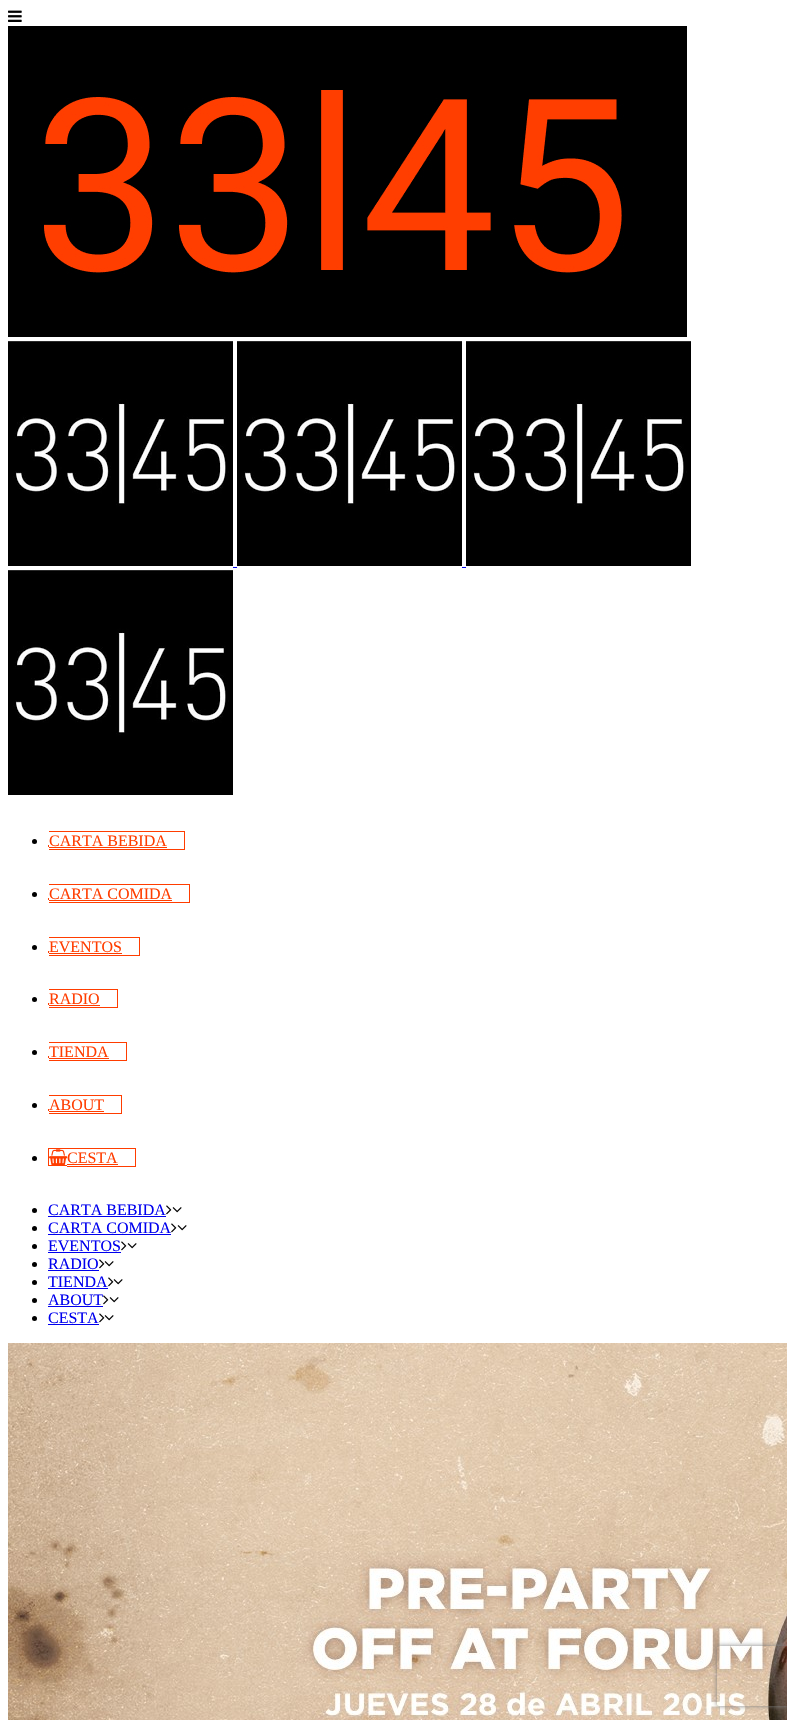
void draw(SkCanvas* canvas) {
    SkPaint paint;
    paint.setAntiAlias(true);
    canvas->clear(0xFFFFFFFF);
    canvas->drawImageRect(SkImages::DeferredFromEncodedData(SkData::MakeFromFileName("img1.png")), SkRect::MakeXYWH(8, 10, 14, 12), SkSamplingOptions());
    canvas->drawImageRect(SkImages::DeferredFromEncodedData(SkData::MakeFromFileName("img2.png")), SkRect::MakeXYWH(8, 26, 679, 311), SkSamplingOptions());
    canvas->drawImageRect(SkImages::DeferredFromEncodedData(SkData::MakeFromFileName("img3.png")), SkRect::MakeXYWH(8, 341, 225, 225), SkSamplingOptions());
    canvas->drawImageRect(SkImages::DeferredFromEncodedData(SkData::MakeFromFileName("img3.png")), SkRect::MakeXYWH(237, 341, 225, 225), SkSamplingOptions());
    canvas->drawImageRect(SkImages::DeferredFromEncodedData(SkData::MakeFromFileName("img3.png")), SkRect::MakeXYWH(466, 341, 225, 225), SkSamplingOptions());
    paint.setColor(0xFF0000EE);
    canvas->drawRect(SkRect::MakeXYWH(233, 567, 4, 1), paint);
    canvas->drawRect(SkRect::MakeXYWH(462, 567, 4, 1), paint);
    canvas->drawImageRect(SkImages::DeferredFromEncodedData(SkData::MakeFromFileName("img3.png")), SkRect::MakeXYWH(8, 570, 225, 225), SkSamplingOptions());
    paint.setColor(0xFF000000);
    canvas->drawCircle(34.5f, 841.5f, 2.5f, paint);
    SkFont font1(fontMgr->matchFamilyStyle("Liberation Serif", SkFontStyle::Normal()), 16);
    font1.setSubpixel(true);
    paint.setColor(0xFFFF3D00);
    canvas->drawString("CARTA BEBIDA", 49, 846, font1, paint);
    canvas->drawRect(SkRect::MakeXYWH(48, 845, 1, 2), paint);
    canvas->drawRect(SkRect::MakeXYWH(49, 831, 136, 1), paint);
    canvas->drawRect(SkRect::MakeXYWH(49, 849, 118, 1), paint);
    canvas->drawRect(SkRect::MakeXYWH(184, 831, 1, 19), paint);
    canvas->drawRect(SkRect::MakeXYWH(167, 849, 18, 1), paint);
    canvas->drawRect(SkRect::MakeXYWH(49, 847, 118, 1), paint);
    paint.setColor(0xFF000000);
    canvas->drawCircle(34.5f, 894.5f, 2.5f, paint);
    paint.setColor(0xFFFF3D00);
    canvas->drawString("CARTA COMIDA", 49, 899, font1, paint);
    canvas->drawRect(SkRect::MakeXYWH(48, 898, 1, 2), paint);
    canvas->drawRect(SkRect::MakeXYWH(49, 884, 141, 1), paint);
    canvas->drawRect(SkRect::MakeXYWH(49, 902, 123, 1), paint);
    canvas->drawRect(SkRect::MakeXYWH(189, 884, 1, 19), paint);
    canvas->drawRect(SkRect::MakeXYWH(172, 902, 18, 1), paint);
    canvas->drawRect(SkRect::MakeXYWH(49, 900, 123, 1), paint);
    paint.setColor(0xFF000000);
    canvas->drawCircle(34.5f, 947.5f, 2.5f, paint);
    paint.setColor(0xFFFF3D00);
    canvas->drawString("EVENTOS", 49, 952, font1, paint);
    canvas->drawRect(SkRect::MakeXYWH(48, 951, 1, 2), paint);
    canvas->drawRect(SkRect::MakeXYWH(49, 937, 91, 1), paint);
    canvas->drawRect(SkRect::MakeXYWH(49, 955, 73, 1), paint);
    canvas->drawRect(SkRect::MakeXYWH(139, 937, 1, 19), paint);
    canvas->drawRect(SkRect::MakeXYWH(122, 955, 18, 1), paint);
    canvas->drawRect(SkRect::MakeXYWH(49, 953, 73, 1), paint);
    paint.setColor(0xFF000000);
    canvas->drawCircle(34.5f, 999.5f, 2.5f, paint);
    paint.setColor(0xFFFF3D00);
    canvas->drawString("RADIO", 49, 1004, font1, paint);
    canvas->drawRect(SkRect::MakeXYWH(48, 1003, 1, 2), paint);
    canvas->drawRect(SkRect::MakeXYWH(49, 989, 69, 1), paint);
    canvas->drawRect(SkRect::MakeXYWH(49, 1007, 51, 1), paint);
    canvas->drawRect(SkRect::MakeXYWH(117, 989, 1, 19), paint);
    canvas->drawRect(SkRect::MakeXYWH(100, 1007, 18, 1), paint);
    canvas->drawRect(SkRect::MakeXYWH(49, 1005, 51, 1), paint);
    paint.setColor(0xFF000000);
    canvas->drawCircle(34.5f, 1052.5f, 2.5f, paint);
    paint.setColor(0xFFFF3D00);
    canvas->drawString("TIENDA", 49, 1057, font1, paint);
    canvas->drawRect(SkRect::MakeXYWH(48, 1056, 1, 2), paint);
    canvas->drawRect(SkRect::MakeXYWH(49, 1042, 78, 1), paint);
    canvas->drawRect(SkRect::MakeXYWH(49, 1060, 60, 1), paint);
    canvas->drawRect(SkRect::MakeXYWH(126, 1042, 1, 19), paint);
    canvas->drawRect(SkRect::MakeXYWH(109, 1060, 18, 1), paint);
    canvas->drawRect(SkRect::MakeXYWH(49, 1058, 60, 1), paint);
    paint.setColor(0xFF000000);
    canvas->drawCircle(34.5f, 1105.5f, 2.5f, paint);
    paint.setColor(0xFFFF3D00);
    canvas->drawString("ABOUT", 49, 1110, font1, paint);
    canvas->drawRect(SkRect::MakeXYWH(48, 1109, 1, 2), paint);
    canvas->drawRect(SkRect::MakeXYWH(49, 1095, 73, 1), paint);
    canvas->drawRect(SkRect::MakeXYWH(49, 1113, 55, 1), paint);
    canvas->drawRect(SkRect::MakeXYWH(121, 1095, 1, 19), paint);
    canvas->drawRect(SkRect::MakeXYWH(104, 1113, 18, 1), paint);
    canvas->drawRect(SkRect::MakeXYWH(49, 1111, 55, 1), paint);
    paint.setColor(0xFF000000);
    canvas->drawCircle(34.5f, 1158.5f, 2.5f, paint);
    paint.setColor(0xFFFF3D00);
    canvas->drawRect(SkRect::MakeXYWH(48, 1148, 88, 1), paint);
    canvas->drawRect(SkRect::MakeXYWH(48, 1165, 19, 1), paint);
    canvas->drawRect(SkRect::MakeXYWH(48, 1148, 1, 18), paint);
    canvas->drawRect(SkRect::MakeXYWH(67, 1166, 51, 1), paint);
    canvas->drawRect(SkRect::MakeXYWH(135, 1148, 1, 19), paint);
    canvas->drawRect(SkRect::MakeXYWH(118, 1166, 18, 1), paint);
    canvas->drawImageRect(SkImages::DeferredFromEncodedData(SkData::MakeFromFileName("img4.png")), SkRect::MakeXYWH(49, 1149, 19, 16), SkSamplingOptions());
    canvas->drawString("CESTA", 67, 1163, font1, paint);
    canvas->drawRect(SkRect::MakeXYWH(67, 1164, 51, 1), paint);
    paint.setColor(0xFF000000);
    canvas->drawCircle(34.5f, 1210.5f, 2.5f, paint);
    paint.setColor(0xFF0000EE);
    canvas->drawString("CARTA BEBIDA", 48, 1215, font1, paint);
    canvas->drawRect(SkRect::MakeXYWH(48, 1216, 118, 1), paint);
    canvas->drawImageRect(SkImages::DeferredFromEncodedData(SkData::MakeFromFileName("img5.png")), SkRect::MakeXYWH(166, 1205, 6, 10), SkSamplingOptions());
    canvas->drawImageRect(SkImages::DeferredFromEncodedData(SkData::MakeFromFileName("img6.png")), SkRect::MakeXYWH(172, 1207, 10, 6), SkSamplingOptions());
    paint.setColor(0xFF000000);
    canvas->drawCircle(34.5f, 1228.5f, 2.5f, paint);
    paint.setColor(0xFF0000EE);
    canvas->drawString("CARTA COMIDA", 48, 1233, font1, paint);
    canvas->drawRect(SkRect::MakeXYWH(48, 1234, 123, 1), paint);
    canvas->drawImageRect(SkImages::DeferredFromEncodedData(SkData::MakeFromFileName("img5.png")), SkRect::MakeXYWH(171, 1223, 6, 10), SkSamplingOptions());
    canvas->drawImageRect(SkImages::DeferredFromEncodedData(SkData::MakeFromFileName("img6.png")), SkRect::MakeXYWH(177, 1225, 10, 6), SkSamplingOptions());
    paint.setColor(0xFF000000);
    canvas->drawCircle(34.5f, 1246.5f, 2.5f, paint);
    paint.setColor(0xFF0000EE);
    canvas->drawString("EVENTOS", 48, 1251, font1, paint);
    canvas->drawRect(SkRect::MakeXYWH(48, 1252, 73, 1), paint);
    canvas->drawImageRect(SkImages::DeferredFromEncodedData(SkData::MakeFromFileName("img5.png")), SkRect::MakeXYWH(121, 1241, 6, 10), SkSamplingOptions());
    canvas->drawImageRect(SkImages::DeferredFromEncodedData(SkData::MakeFromFileName("img6.png")), SkRect::MakeXYWH(127, 1243, 10, 6), SkSamplingOptions());
    paint.setColor(0xFF000000);
    canvas->drawCircle(34.5f, 1264.5f, 2.5f, paint);
    paint.setColor(0xFF0000EE);
    canvas->drawString("RADIO", 48, 1269, font1, paint);
    canvas->drawRect(SkRect::MakeXYWH(48, 1270, 51, 1), paint);
    canvas->drawImageRect(SkImages::DeferredFromEncodedData(SkData::MakeFromFileName("img5.png")), SkRect::MakeXYWH(99, 1259, 6, 10), SkSamplingOptions());
    canvas->drawImageRect(SkImages::DeferredFromEncodedData(SkData::MakeFromFileName("img7.png")), SkRect::MakeXYWH(104, 1261, 10, 6), SkSamplingOptions());
    paint.setColor(0xFF000000);
    canvas->drawCircle(34.5f, 1282.5f, 2.5f, paint);
    paint.setColor(0xFF0000EE);
    canvas->drawString("TIENDA", 48, 1287, font1, paint);
    canvas->drawRect(SkRect::MakeXYWH(48, 1288, 60, 1), paint);
    canvas->drawImageRect(SkImages::DeferredFromEncodedData(SkData::MakeFromFileName("img5.png")), SkRect::MakeXYWH(108, 1277, 6, 10), SkSamplingOptions());
    canvas->drawImageRect(SkImages::DeferredFromEncodedData(SkData::MakeFromFileName("img7.png")), SkRect::MakeXYWH(113, 1279, 10, 6), SkSamplingOptions());
    paint.setColor(0xFF000000);
    canvas->drawCircle(34.5f, 1300.5f, 2.5f, paint);
    paint.setColor(0xFF0000EE);
    canvas->drawString("ABOUT", 48, 1305, font1, paint);
    canvas->drawRect(SkRect::MakeXYWH(48, 1306, 55, 1), paint);
    canvas->drawImageRect(SkImages::DeferredFromEncodedData(SkData::MakeFromFileName("img5.png")), SkRect::MakeXYWH(103, 1295, 6, 10), SkSamplingOptions());
    canvas->drawImageRect(SkImages::DeferredFromEncodedData(SkData::MakeFromFileName("img6.png")), SkRect::MakeXYWH(109, 1297, 10, 6), SkSamplingOptions());
    paint.setColor(0xFF000000);
    canvas->drawCircle(34.5f, 1318.5f, 2.5f, paint);
    paint.setColor(0xFF0000EE);
    canvas->drawString("CESTA", 48, 1323, font1, paint);
    canvas->drawRect(SkRect::MakeXYWH(48, 1324, 51, 1), paint);
    canvas->drawImageRect(SkImages::DeferredFromEncodedData(SkData::MakeFromFileName("img5.png")), SkRect::MakeXYWH(99, 1313, 6, 10), SkSamplingOptions());
    canvas->drawImageRect(SkImages::DeferredFromEncodedData(SkData::MakeFromFileName("img7.png")), SkRect::MakeXYWH(104, 1315, 10, 6), SkSamplingOptions());
    canvas->drawImageRect(SkImages::DeferredFromEncodedData(SkData::MakeFromFileName("img8.png")), SkRect::MakeXYWH(8, 1343, 779, 377), SkSamplingOptions());
    canvas->save();
    canvas->clipPath(SkPathBuilder(SkPathFillType::kEvenOdd).moveTo(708, 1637).lineTo(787, 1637).lineTo(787, 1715).lineTo(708, 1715).close().moveTo(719, 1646).lineTo(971, 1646).cubicTo(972, 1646, 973, 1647, 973, 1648).lineTo(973, 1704).cubicTo(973, 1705, 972, 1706, 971, 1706).lineTo(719, 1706).cubicTo(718, 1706, 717, 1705, 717, 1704).lineTo(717, 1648).cubicTo(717, 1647, 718, 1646, 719, 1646).close().detach(), true);
    paint.setColor(0xFF808080);
    paint.setMaskFilter(SkMaskFilter::MakeBlur(kNormal_SkBlurStyle, 2.5f));
    canvas->drawRoundRect(SkRect::MakeXYWH(717, 1646, 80, 60), 2, 2, paint);
    paint.setMaskFilter(nullptr);
    canvas->restore();
}
